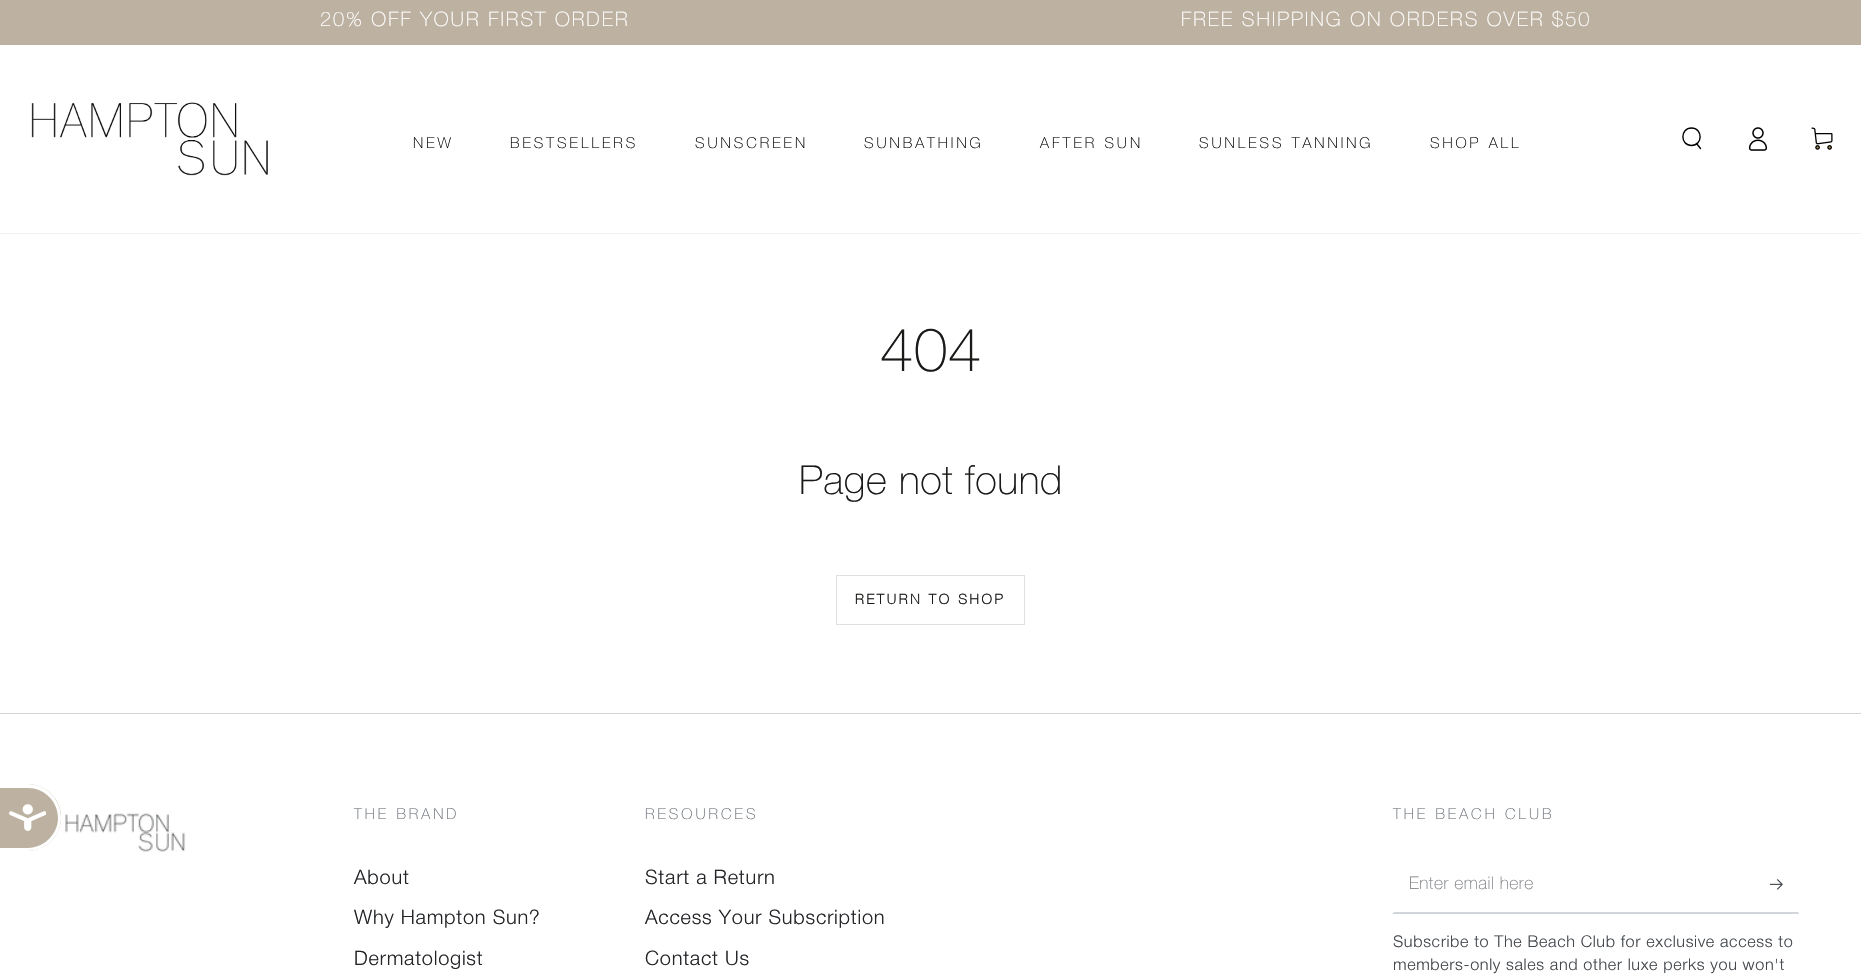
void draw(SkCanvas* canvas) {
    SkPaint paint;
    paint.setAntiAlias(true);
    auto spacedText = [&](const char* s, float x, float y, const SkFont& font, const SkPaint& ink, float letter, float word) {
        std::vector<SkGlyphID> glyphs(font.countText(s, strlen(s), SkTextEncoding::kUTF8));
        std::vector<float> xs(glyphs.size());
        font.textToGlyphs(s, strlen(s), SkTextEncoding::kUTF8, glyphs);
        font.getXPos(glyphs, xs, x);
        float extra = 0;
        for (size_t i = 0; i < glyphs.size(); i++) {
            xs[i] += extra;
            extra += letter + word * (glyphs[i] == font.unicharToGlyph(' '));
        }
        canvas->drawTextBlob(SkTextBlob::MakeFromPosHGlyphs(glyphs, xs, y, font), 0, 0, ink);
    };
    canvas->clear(0xFFFFFFFF);
    paint.setColor(0xFFBDB2A1);
    canvas->drawPath(SkPathBuilder().moveTo(0, 784).lineTo(27.5f, 784).cubicTo(46, 784, 61, 799, 61, 817.5f).cubicTo(61, 836, 46, 851, 27.5f, 851).lineTo(0, 851).close().detach(), paint);
    paint.setColor(0xFFFFFFFF);
    canvas->drawPath(SkPathBuilder(SkPathFillType::kEvenOdd).moveTo(0, 784).lineTo(28, 784).cubicTo(46, 784, 61, 799, 61, 818).cubicTo(61, 836, 46, 851, 28, 851).lineTo(0, 851).close().moveTo(0, 788).lineTo(28, 788).cubicTo(44, 788, 58, 801, 58, 818).cubicTo(58, 834, 44, 848, 28, 848).lineTo(0, 848).close().detach(), paint);
    canvas->drawImageRect(SkImages::DeferredFromEncodedData(SkData::MakeFromFileName("img1.png")), SkRect::MakeXYWH(9, 804, 37, 27), SkSamplingOptions());
    paint.setColor(0xFFBDB2A1);
    canvas->drawRect(SkRect::MakeXYWH(0, 0, 1861, 45), paint);
    SkFont font1(fontMgr->matchFamilyStyle("Helvetica Neue", SkFontStyle(200, SkFontStyle::kNormal_Width, SkFontStyle::kUpright_Slant)), 20);
    font1.setSubpixel(true);
    paint.setColor(0xFFFFFFFF);
    spacedText("20% OFF YOUR FIRST ORDER", 320, 26, font1, paint, 2, 0);
    spacedText("FREE SHIPPING ON ORDERS OVER $50", 1181, 26, font1, paint, 2, 0);
    paint.setColor(0xFFF2F2F4);
    canvas->drawRect(SkRect::MakeXYWH(0, 233, 1861, 1), paint);
    canvas->drawImageRect(SkImages::DeferredFromEncodedData(SkData::MakeFromFileName("img2.png")), SkRect::MakeXYWH(31, 102, 237, 74), SkSamplingOptions());
    SkFont font2(fontMgr->matchFamilyStyle("Helvetica Neue", SkFontStyle(200, SkFontStyle::kNormal_Width, SkFontStyle::kUpright_Slant)), 15);
    font2.setSubpixel(true);
    paint.setColor(0xFF000000);
    spacedText("NEW", 413, 148, font2, paint, 3, 0);
    spacedText("BESTSELLERS", 510, 148, font2, paint, 3, 0);
    spacedText("SUNSCREEN", 695, 148, font2, paint, 3, 0);
    spacedText("SUNBATHING", 864, 148, font2, paint, 3, 0);
    spacedText("AFTER SUN", 1040, 148, font2, paint, 3, 0);
    spacedText("SUNLESS TANNING", 1199, 148, font2, paint, 3, 0);
    spacedText("SHOP ALL", 1430, 148, font2, paint, 3, 0);
    paint.setStyle(SkPaint::kStroke_Style);
    paint.setStrokeWidth(1.4f);
    canvas->drawPath(SkPathBuilder().moveTo(1691.5f, 145.5f).cubicTo(1703, 145.5f, 1703, 128, 1691.5f, 128).cubicTo(1680, 128, 1680, 145.5f, 1691.5f, 145.5f).close().detach(), paint);
    paint.setStrokeCap(SkPaint::kRound_Cap);
    canvas->drawPath(SkPathBuilder().moveTo(1696.5f, 143.5f).lineTo(1700.5f, 148.5f).detach(), paint);
    canvas->drawImageRect(SkImages::DeferredFromEncodedData(SkData::MakeFromFileName("img3.png")), SkRect::MakeXYWH(1748, 127, 19, 24), SkSamplingOptions());
    canvas->drawImageRect(SkImages::DeferredFromEncodedData(SkData::MakeFromFileName("img4.png")), SkRect::MakeXYWH(1811, 127, 22, 23), SkSamplingOptions());
    SkFont font3(fontMgr->matchFamilyStyle("Helvetica Neue", SkFontStyle(200, SkFontStyle::kNormal_Width, SkFontStyle::kUpright_Slant)), 60);
    font3.setSubpixel(true);
    paint.setStyle(SkPaint::kFill_Style);
    paint.setColor(0xFF1A1B18);
    spacedText("404", 880, 371, font3, paint, 0.6f, 0);
    SkFont font4(fontMgr->matchFamilyStyle("Helvetica Neue", SkFontStyle(200, SkFontStyle::kNormal_Width, SkFontStyle::kUpright_Slant)), 40);
    font4.setSubpixel(true);
    spacedText("Page not found", 799, 494, font4, paint, 0.6f, 0);
    paint.setStyle(SkPaint::kStroke_Style);
    paint.setStrokeWidth(1);
    paint.setStrokeCap(SkPaint::kButt_Cap);
    paint.setColor(0xFFDFDFDF);
    canvas->drawRect(SkRect::MakeXYWH(836.5f, 575.5f, 188, 49), paint);
    SkFont font5(fontMgr->matchFamilyStyle("Helvetica Neue", SkFontStyle::Bold()), 13.75f);
    font5.setSubpixel(true);
    paint.setStyle(SkPaint::kFill_Style);
    paint.setColor(0xFF1A1B18);
    spacedText("RETURN TO SHOP", 855, 604, font5, paint, 2.75f, 0);
    paint.setColor(0xFFD2D5D9);
    canvas->drawRect(SkRect::MakeXYWH(0, 713, 1861, 1), paint);
    canvas->drawImageRect(SkImages::DeferredFromEncodedData(SkData::MakeFromFileName("img5.png")), SkRect::MakeXYWH(65, 813, 121, 39), SkSamplingOptions());
    paint.setColor(0xFF6B7177);
    spacedText("THE BRAND", 354, 819, font2, paint, 3, 0);
    SkFont font6(fontMgr->matchFamilyStyle("Helvetica Neue", SkFontStyle(300, SkFontStyle::kNormal_Width, SkFontStyle::kUpright_Slant)), 20);
    font6.setSubpixel(true);
    paint.setColor(0xFF212326);
    spacedText("About", 354, 884, font6, paint, 0.75f, 0);
    spacedText("Why Hampton Sun?", 354, 924, font6, paint, 0.75f, 0);
    spacedText("Dermatologist", 354, 965, font6, paint, 0.75f, 0);
    paint.setColor(0xFF6B7177);
    spacedText("RESOURCES", 645, 819, font2, paint, 3, 0);
    paint.setColor(0xFF212326);
    spacedText("Start a Return", 645, 884, font6, paint, 0.75f, 0);
    spacedText("Access Your Subscription", 645, 924, font6, paint, 0.75f, 0);
    spacedText("Contact Us", 645, 965, font6, paint, 0.75f, 0);
    paint.setColor(0xFF6B7177);
    spacedText("THE BEACH CLUB", 1393, 819, font2, paint, 3, 0);
    paint.setColor(0xFFD2D5D9);
    canvas->drawPath(SkPathBuilder().moveTo(1799, 914).lineTo(1392, 914).lineTo(1394, 912).lineTo(1798, 912).close().detach(), paint);
    SkFont font7(fontMgr->matchFamilyStyle("Helvetica Neue", SkFontStyle(200, SkFontStyle::kNormal_Width, SkFontStyle::kUpright_Slant)), 17.5f);
    font7.setSubpixel(true);
    paint.setColor(0xFF7B7E82);
    spacedText("Enter email here", 1409, 889, font7, paint, 0.5f, 0);
    canvas->drawImageRect(SkImages::DeferredFromEncodedData(SkData::MakeFromFileName("img6.png")), SkRect::MakeXYWH(1770, 879, 13, 11), SkSamplingOptions());
    SkFont font8(fontMgr->matchFamilyStyle("Helvetica Neue", SkFontStyle(300, SkFontStyle::kNormal_Width, SkFontStyle::kUpright_Slant)), 16.25f);
    font8.setSubpixel(true);
    paint.setColor(0xFF42474C);
    spacedText("Subscribe to The Beach Club for exclusive access to", 1393, 947, font8, paint, 0.62f, 0);
    spacedText("members-only sales and other luxe perks you won't", 1393, 970, font8, paint, 0.62f, 0);
}
